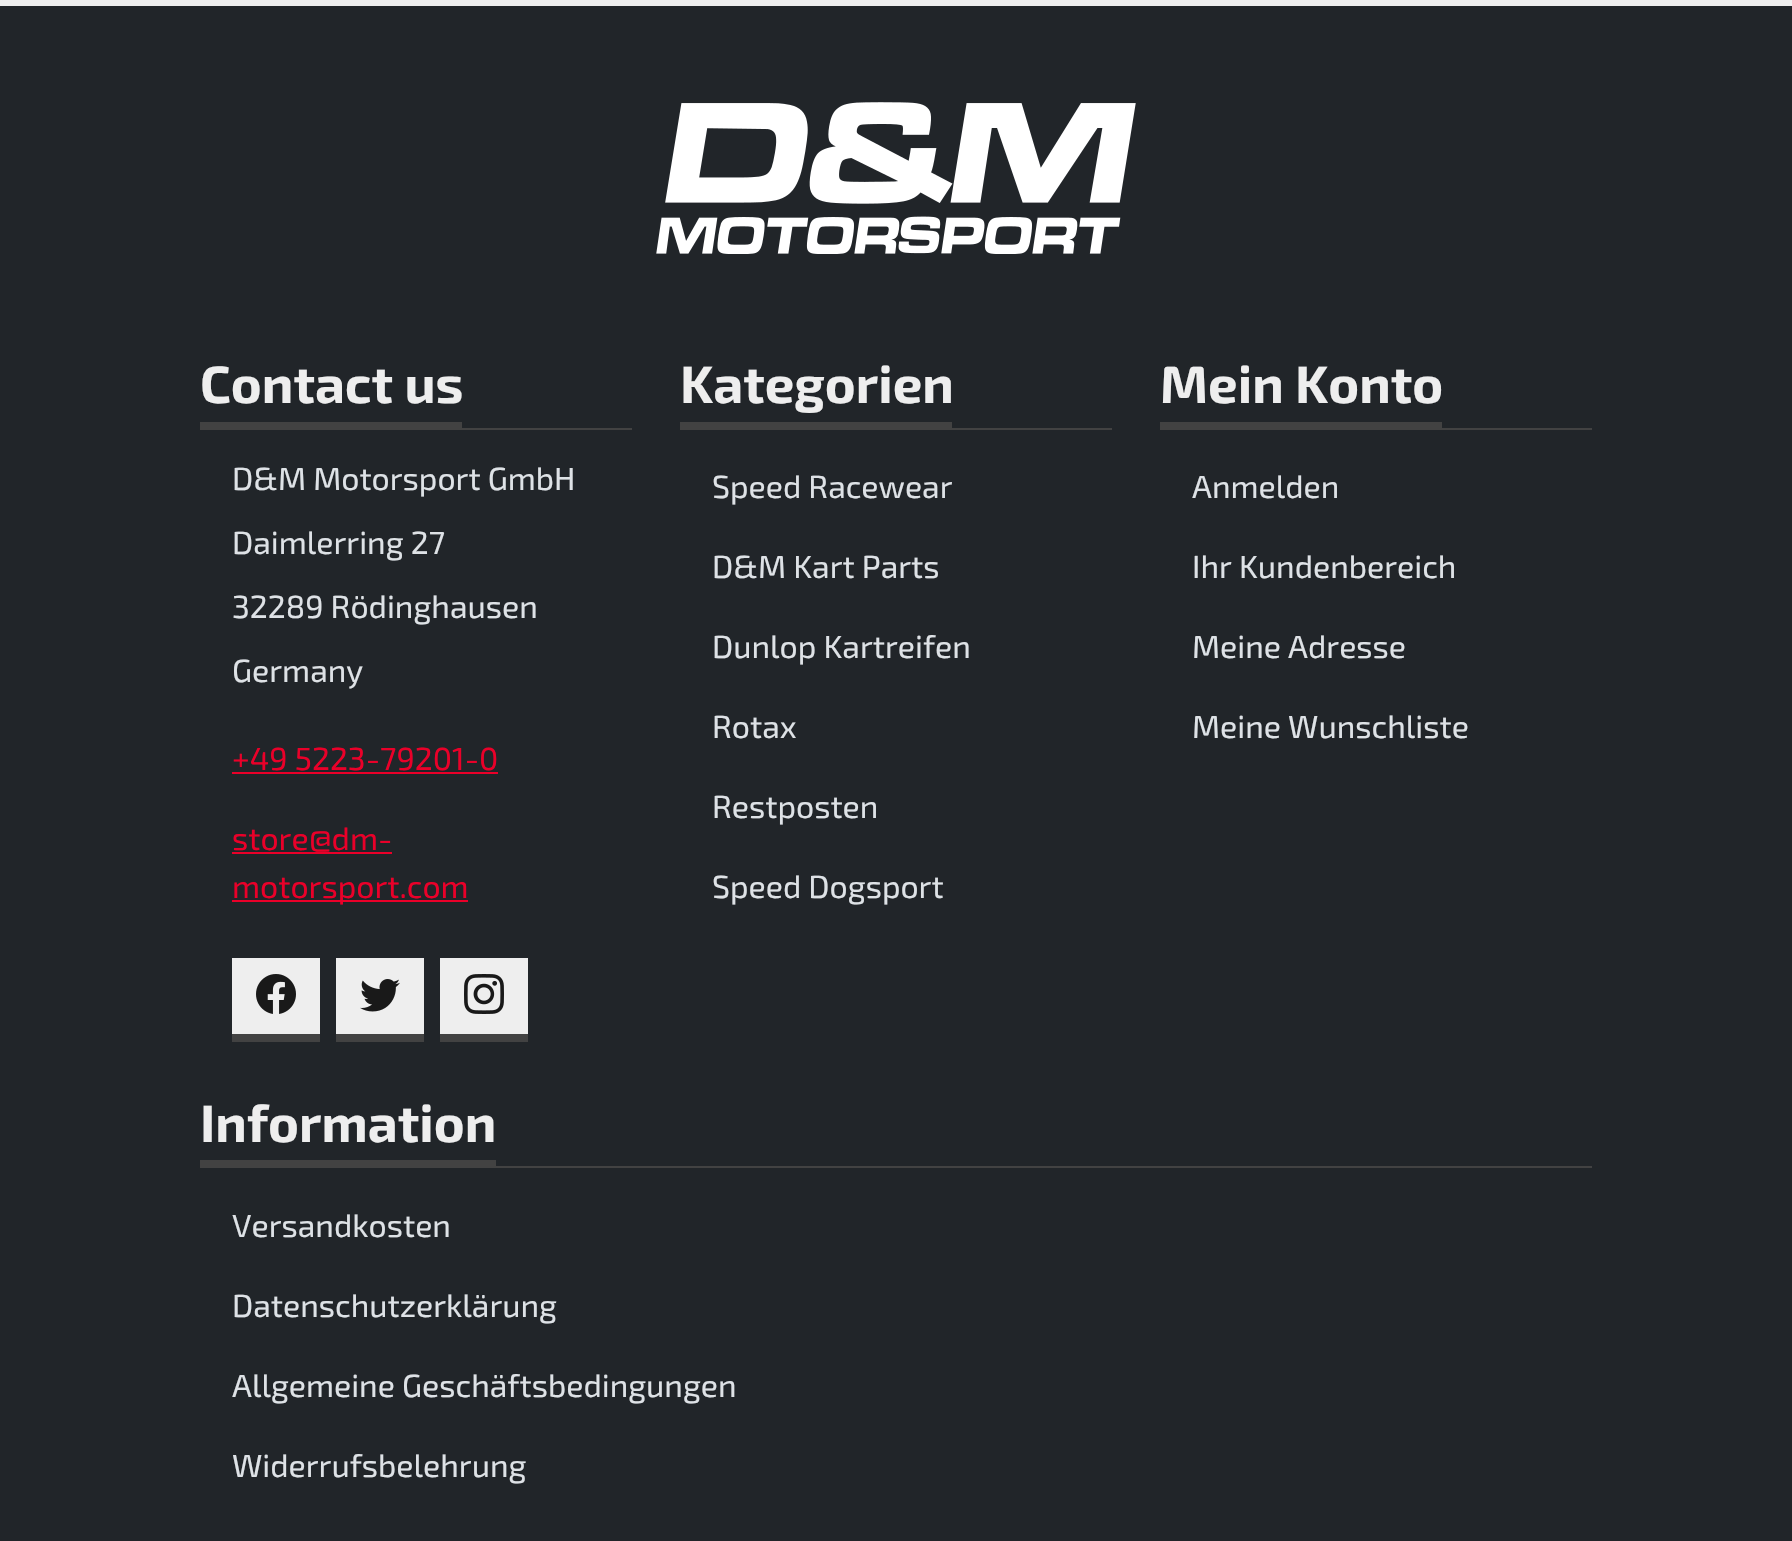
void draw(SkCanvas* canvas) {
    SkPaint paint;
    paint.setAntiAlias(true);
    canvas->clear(0xFFEEEEEE);
    paint.setColor(0xFF212529);
    canvas->drawRect(SkRect::MakeXYWH(0, 6, 1792, 1535), paint);
    canvas->drawImageRect(SkImages::DeferredFromEncodedData(SkData::MakeFromFileName("img1.png")), SkRect::MakeXYWH(656, 102, 480, 152), SkSamplingOptions());
    paint.setColor(0xFF424242);
    canvas->drawRect(SkRect::MakeXYWH(200, 428, 432, 2), paint);
    canvas->drawRect(SkRect::MakeXYWH(200, 422, 262, 6), paint);
    SkFont font1(fontMgr->matchFamilyStyle("Exo 2", SkFontStyle::Bold()), 52.5f);
    font1.setSubpixel(true);
    paint.setColor(0xFFEEEEEE);
    canvas->drawString("Contact us", 200, 403, font1, paint);
    SkFont font2(fontMgr->matchFamilyStyle("Exo 2", SkFontStyle::Normal()), 32);
    font2.setSubpixel(true);
    paint.setColor(0xFFDEE2E6);
    canvas->drawString("D&M Motorsport GmbH", 232, 490, font2, paint);
    canvas->drawString("Daimlerring 27", 232, 554, font2, paint);
    canvas->drawString("32289 Rödinghausen", 232, 618, font2, paint);
    canvas->drawString("Germany", 232, 682, font2, paint);
    paint.setColor(0xFFEA0029);
    canvas->drawString("+49 5223-79201-0", 232, 770, font2, paint);
    canvas->drawRect(SkRect::MakeXYWH(232, 772, 266, 2), paint);
    canvas->drawString("store@dm-", 232, 850, font2, paint);
    canvas->drawRect(SkRect::MakeXYWH(232, 852, 160, 2), paint);
    canvas->drawRect(SkRect::MakeXYWH(232, 900, 236, 2), paint);
    canvas->drawString("motorsport.com", 232, 898, font2, paint);
    paint.setColor(0xFFEEEEEE);
    canvas->drawRect(SkRect::MakeXYWH(232, 958, 88, 76), paint);
    paint.setColor(0xFF424242);
    canvas->drawRect(SkRect::MakeXYWH(232, 1034, 88, 8), paint);
    canvas->drawImageRect(SkImages::DeferredFromEncodedData(SkData::MakeFromFileName("img2.png")), SkRect::MakeXYWH(256, 974, 40, 40), SkSamplingOptions());
    paint.setColor(0xFFEEEEEE);
    canvas->drawRect(SkRect::MakeXYWH(336, 958, 88, 76), paint);
    paint.setColor(0xFF424242);
    canvas->drawRect(SkRect::MakeXYWH(336, 1034, 88, 8), paint);
    canvas->drawImageRect(SkImages::DeferredFromEncodedData(SkData::MakeFromFileName("img3.png")), SkRect::MakeXYWH(360, 979, 40, 33), SkSamplingOptions());
    paint.setColor(0xFFEEEEEE);
    canvas->drawRect(SkRect::MakeXYWH(440, 958, 88, 76), paint);
    paint.setColor(0xFF424242);
    canvas->drawRect(SkRect::MakeXYWH(440, 1034, 88, 8), paint);
    canvas->drawImageRect(SkImages::DeferredFromEncodedData(SkData::MakeFromFileName("img4.png")), SkRect::MakeXYWH(464, 974, 40, 40), SkSamplingOptions());
    canvas->drawRect(SkRect::MakeXYWH(680, 428, 432, 2), paint);
    canvas->drawRect(SkRect::MakeXYWH(680, 422, 272, 6), paint);
    paint.setColor(0xFFEEEEEE);
    canvas->drawString("Kategorien", 680, 403, font1, paint);
    paint.setColor(0xFFDEE2E6);
    canvas->drawString("Speed Racewear", 712, 498, font2, paint);
    canvas->drawString("D&M Kart Parts", 712, 578, font2, paint);
    canvas->drawString("Dunlop Kartreifen", 712, 658, font2, paint);
    canvas->drawString("Rotax", 712, 738, font2, paint);
    canvas->drawString("Restposten", 712, 818, font2, paint);
    canvas->drawString("Speed Dogsport", 712, 898, font2, paint);
    paint.setColor(0xFF424242);
    canvas->drawRect(SkRect::MakeXYWH(1160, 428, 432, 2), paint);
    canvas->drawRect(SkRect::MakeXYWH(1160, 422, 282, 6), paint);
    paint.setColor(0xFFEEEEEE);
    canvas->drawString("Mein Konto", 1160, 403, font1, paint);
    paint.setColor(0xFFDEE2E6);
    canvas->drawString("Anmelden", 1192, 498, font2, paint);
    canvas->drawString("Ihr Kundenbereich", 1192, 578, font2, paint);
    canvas->drawString("Meine Adresse", 1192, 658, font2, paint);
    canvas->drawString("Meine Wunschliste", 1192, 738, font2, paint);
    paint.setColor(0xFF424242);
    canvas->drawRect(SkRect::MakeXYWH(200, 1166, 1392, 2), paint);
    canvas->drawRect(SkRect::MakeXYWH(200, 1160, 296, 6), paint);
    paint.setColor(0xFFEEEEEE);
    canvas->drawString("Information", 200, 1142, font1, paint);
    paint.setColor(0xFFDEE2E6);
    canvas->drawString("Versandkosten", 232, 1237, font2, paint);
    canvas->drawString("Datenschutzerklärung", 232, 1317, font2, paint);
    canvas->drawString("Allgemeine Geschäftsbedingungen", 232, 1397, font2, paint);
    canvas->drawString("Widerrufsbelehrung", 232, 1477, font2, paint);
}
